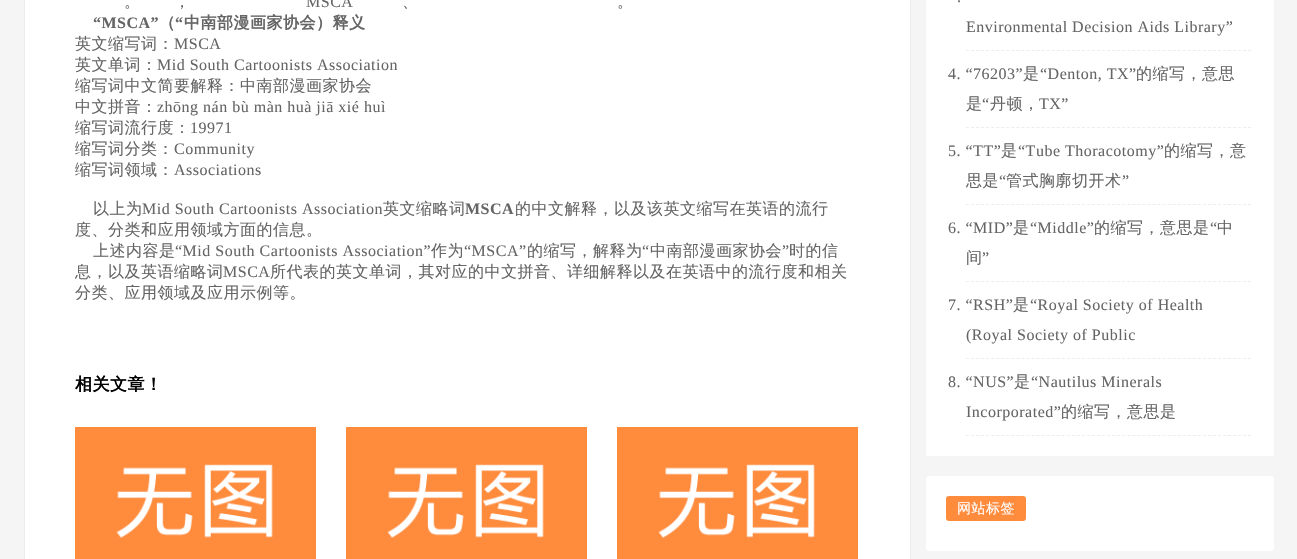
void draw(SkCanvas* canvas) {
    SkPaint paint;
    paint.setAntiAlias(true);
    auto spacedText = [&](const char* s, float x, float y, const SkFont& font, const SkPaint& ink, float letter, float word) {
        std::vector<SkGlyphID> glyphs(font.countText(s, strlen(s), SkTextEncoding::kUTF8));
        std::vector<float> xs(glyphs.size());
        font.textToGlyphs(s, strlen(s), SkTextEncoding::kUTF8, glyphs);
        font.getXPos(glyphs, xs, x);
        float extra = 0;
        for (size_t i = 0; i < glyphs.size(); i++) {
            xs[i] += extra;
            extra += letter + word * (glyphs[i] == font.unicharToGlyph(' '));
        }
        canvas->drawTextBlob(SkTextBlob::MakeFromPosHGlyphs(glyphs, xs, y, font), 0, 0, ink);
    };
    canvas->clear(0xFFF5F5F5);
    paint.setColor(0xFFFFFFFF);
    canvas->drawRect(SkRect::MakeXYWH(24.5f, -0.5f, 886, 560), paint);
    paint.setStyle(SkPaint::kStroke_Style);
    paint.setStrokeWidth(1);
    paint.setColor(0xFFEDEDED);
    canvas->drawRect(SkRect::MakeXYWH(24.5f, -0.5f, 886, 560), paint);
    SkFont font1(fontMgr->matchFamilyStyle("WenQuanYi Zen Hei", SkFontStyle(500, SkFontStyle::kNormal_Width, SkFontStyle::kUpright_Slant)), 16);
    font1.setSubpixel(true);
    paint.setStyle(SkPaint::kFill_Style);
    paint.setColor(0xFF656565);
    spacedText("。", 124, 7, font1, paint, 0.5f, 0);
    spacedText("，", 174, 7, font1, paint, 0.5f, 0);
    SkFont font2(fontMgr->matchFamilyStyle("Liberation Serif", SkFontStyle::Normal()), 16);
    font2.setSubpixel(true);
    spacedText("MSCA", 306, 7, font2, paint, 0.5f, 0);
    spacedText("、", 402, 7, font1, paint, 0.5f, 0);
    spacedText("。", 617, 7, font1, paint, 0.5f, 0);
    SkFont font3(fontMgr->matchFamilyStyle("Liberation Serif", SkFontStyle::Bold()), 16);
    font3.setSubpixel(true);
    spacedText("“MSCA”", 93, 28, font3, paint, 0.5f, 0);
    SkFont font4(fontMgr->matchFamilyStyle("WenQuanYi Zen Hei", SkFontStyle::Bold()), 16);
    font4.setSubpixel(true);
    spacedText("（", 159, 28, font4, paint, 0.5f, 0);
    spacedText("“", 175, 28, font3, paint, 0.5f, 0);
    spacedText("中南部漫画家协会）释义", 184, 28, font4, paint, 0.5f, 0);
    spacedText("英文缩写词：", 75, 49, font1, paint, 0.5f, 0);
    spacedText("MSCA", 174, 49, font2, paint, 0.5f, 0);
    spacedText("英文单词：", 75, 70, font1, paint, 0.5f, 0);
    spacedText("Mid South Cartoonists Association", 157, 70, font2, paint, 0.5f, 0);
    spacedText("缩写词中文简要解释：中南部漫画家协会", 75, 91, font1, paint, 0.5f, 0);
    spacedText("中文拼音：", 75, 112, font1, paint, 0.5f, 0);
    spacedText("zhōng nán bù màn huà jiā xié huì", 157, 112, font2, paint, 0.5f, 0);
    spacedText("缩写词流行度：", 75, 133, font1, paint, 0.5f, 0);
    spacedText("19971", 190, 133, font2, paint, 0.5f, 0);
    spacedText("缩写词分类：", 75, 154, font1, paint, 0.5f, 0);
    spacedText("Community", 174, 154, font2, paint, 0.5f, 0);
    spacedText("缩写词领域：", 75, 175, font1, paint, 0.5f, 0);
    spacedText("Associations", 174, 175, font2, paint, 0.5f, 0);
    spacedText("以上为", 93, 214, font1, paint, 0.5f, 0);
    spacedText("Mid South Cartoonists Association", 142, 214, font2, paint, 0.5f, 0);
    spacedText("英文缩略词", 383, 214, font1, paint, 0.5f, 0);
    spacedText("MSCA", 465, 214, font3, paint, 0.5f, 0);
    spacedText("的中文解释，以及该英文缩写在英语的流行", 515, 214, font1, paint, 0.5f, 0);
    spacedText("度、分类和应用领域方面的信息。", 75, 235, font1, paint, 0.5f, 0);
    spacedText("上述内容是", 93, 256, font1, paint, 0.5f, 0);
    spacedText("“Mid South Cartoonists Association”", 175, 256, font2, paint, 0.5f, 0);
    spacedText("作为", 431, 256, font1, paint, 0.5f, 0);
    spacedText("“MSCA”", 464, 256, font2, paint, 0.5f, 0);
    spacedText("的缩写，解释为", 527, 256, font1, paint, 0.5f, 0);
    spacedText("“", 642, 256, font2, paint, 0.5f, 0);
    spacedText("中南部漫画家协会", 650, 256, font1, paint, 0.5f, 0);
    spacedText("”", 782, 256, font2, paint, 0.5f, 0);
    spacedText("时的信", 789, 256, font1, paint, 0.5f, 0);
    spacedText("息，以及英语缩略词", 75, 277, font1, paint, 0.5f, 0);
    spacedText("MSCA", 223, 277, font2, paint, 0.5f, 0);
    spacedText("所代表的英文单词，其对应的中文拼音、详细解释以及在英语中的流行度和相关", 270, 277, font1, paint, 0.5f, 0);
    spacedText("分类、应用领域及应用示例等。", 75, 298, font1, paint, 0.5f, 0);
    SkFont font5(fontMgr->matchFamilyStyle("WenQuanYi Zen Hei", SkFontStyle::Bold()), 17);
    font5.setSubpixel(true);
    paint.setColor(0xFF000000);
    spacedText("相关文章！", 75, 390, font5, paint, 0.5f, 0);
    canvas->drawImageRect(SkImages::DeferredFromEncodedData(SkData::MakeFromFileName("img1.png")), SkRect::MakeXYWH(75, 427, 241, 132), SkSamplingOptions());
    canvas->drawImageRect(SkImages::DeferredFromEncodedData(SkData::MakeFromFileName("img1.png")), SkRect::MakeXYWH(346, 427, 241, 132), SkSamplingOptions());
    canvas->drawImageRect(SkImages::DeferredFromEncodedData(SkData::MakeFromFileName("img1.png")), SkRect::MakeXYWH(617, 427, 241, 132), SkSamplingOptions());
    paint.setColor(0xFFFFFFFF);
    canvas->drawRect(SkRect::MakeXYWH(926, 0, 348, 456), paint);
    paint.setStyle(SkPaint::kStroke_Style);
    paint.setColor(0xFFEDEDED);
    paint.setPathEffect(SkDashPathEffect::Make({{3, 2.04f}}, 0));
    canvas->drawPath(SkPathBuilder().moveTo(966, 50.5f).lineTo(1251, 50.5f).detach(), paint);
    paint.setPathEffect(nullptr);
    paint.setStyle(SkPaint::kFill_Style);
    paint.setColor(0xFF656565);
    spacedText(".", 957, 2, font2, paint, 0.5f, 0);
    spacedText("Environmental Decision Aids Library”", 966, 32, font2, paint, 0.5f, 0);
    paint.setStyle(SkPaint::kStroke_Style);
    paint.setColor(0xFFEDEDED);
    paint.setPathEffect(SkDashPathEffect::Make({{3, 2.04f}}, 0));
    canvas->drawPath(SkPathBuilder().moveTo(966, 127.5f).lineTo(1251, 127.5f).detach(), paint);
    paint.setPathEffect(nullptr);
    paint.setStyle(SkPaint::kFill_Style);
    paint.setColor(0xFF656565);
    spacedText("是", 1023, 79, font1, paint, 0.5f, 0);
    spacedText("“Denton, TX”", 1040, 79, font2, paint, 0.5f, 0);
    spacedText("的缩写，意思", 1136, 79, font1, paint, 0.5f, 0);
    spacedText("是", 966, 109, font1, paint, 0.5f, 0);
    spacedText("“", 982, 109, font2, paint, 0.5f, 0);
    spacedText("丹顿，", 990, 109, font1, paint, 0.5f, 0);
    spacedText("TX”", 1039, 109, font2, paint, 0.5f, 0);
    spacedText("4. “76203”", 948, 79, font2, paint, 0.5f, 0);
    paint.setStyle(SkPaint::kStroke_Style);
    paint.setColor(0xFFEDEDED);
    paint.setPathEffect(SkDashPathEffect::Make({{3, 2.04f}}, 0));
    canvas->drawPath(SkPathBuilder().moveTo(966, 204.5f).lineTo(1251, 204.5f).detach(), paint);
    paint.setPathEffect(nullptr);
    paint.setStyle(SkPaint::kFill_Style);
    paint.setColor(0xFF656565);
    spacedText("是", 1001, 156, font1, paint, 0.5f, 0);
    spacedText("“Tube Thoracotomy”", 1018, 156, font2, paint, 0.5f, 0);
    spacedText("的缩写，意", 1164, 156, font1, paint, 0.5f, 0);
    spacedText("思是", 966, 186, font1, paint, 0.5f, 0);
    spacedText("“", 999, 186, font2, paint, 0.5f, 0);
    spacedText("管式胸廓切开术", 1006, 186, font1, paint, 0.5f, 0);
    spacedText("”", 1122, 186, font2, paint, 0.5f, 0);
    spacedText("5. “TT”", 948, 156, font2, paint, 0.5f, 0);
    paint.setStyle(SkPaint::kStroke_Style);
    paint.setColor(0xFFEDEDED);
    paint.setPathEffect(SkDashPathEffect::Make({{3, 2.04f}}, 0));
    canvas->drawPath(SkPathBuilder().moveTo(966, 281.5f).lineTo(1251, 281.5f).detach(), paint);
    paint.setPathEffect(nullptr);
    paint.setStyle(SkPaint::kFill_Style);
    paint.setColor(0xFF656565);
    spacedText("是", 1013, 233, font1, paint, 0.5f, 0);
    spacedText("“Middle”", 1030, 233, font2, paint, 0.5f, 0);
    spacedText("的缩写，意思是", 1094, 233, font1, paint, 0.5f, 0);
    spacedText("“", 1210, 233, font2, paint, 0.5f, 0);
    spacedText("中", 1217, 233, font1, paint, 0.5f, 0);
    spacedText("间", 966, 263, font1, paint, 0.5f, 0);
    spacedText("”", 982, 263, font2, paint, 0.5f, 0);
    spacedText("6. “MID”", 948, 233, font2, paint, 0.5f, 0);
    paint.setStyle(SkPaint::kStroke_Style);
    paint.setColor(0xFFEDEDED);
    paint.setPathEffect(SkDashPathEffect::Make({{3, 2.04f}}, 0));
    canvas->drawPath(SkPathBuilder().moveTo(966, 358.5f).lineTo(1251, 358.5f).detach(), paint);
    paint.setPathEffect(nullptr);
    paint.setStyle(SkPaint::kFill_Style);
    paint.setColor(0xFF656565);
    spacedText("是", 1013, 310, font1, paint, 0.5f, 0);
    spacedText("“Royal Society of Health", 1030, 310, font2, paint, 0.5f, 0);
    spacedText("(Royal Society of Public", 966, 340, font2, paint, 0.5f, 0);
    spacedText("7. “RSH”", 948, 310, font2, paint, 0.5f, 0);
    paint.setStyle(SkPaint::kStroke_Style);
    paint.setColor(0xFFEDEDED);
    paint.setPathEffect(SkDashPathEffect::Make({{3, 2.04f}}, 0));
    canvas->drawPath(SkPathBuilder().moveTo(966, 435.5f).lineTo(1251, 435.5f).detach(), paint);
    paint.setPathEffect(nullptr);
    paint.setStyle(SkPaint::kFill_Style);
    paint.setColor(0xFF656565);
    spacedText("是", 1014, 387, font1, paint, 0.5f, 0);
    spacedText("“Nautilus Minerals", 1031, 387, font2, paint, 0.5f, 0);
    spacedText("Incorporated”", 966, 417, font2, paint, 0.5f, 0);
    spacedText("的缩写，意思是", 1061, 417, font1, paint, 0.5f, 0);
    spacedText("8. “NUS”", 948, 387, font2, paint, 0.5f, 0);
    paint.setColor(0xFFFFFFFF);
    canvas->drawRoundRect(SkRect::MakeXYWH(926, 476, 348, 75), 3, 3, paint);
    paint.setColor(0xFFFF8B3D);
    canvas->drawRoundRect(SkRect::MakeXYWH(946, 496, 80, 25), 3, 3, paint);
    SkFont font6(fontMgr->matchFamilyStyle("WenQuanYi Zen Hei", SkFontStyle(500, SkFontStyle::kNormal_Width, SkFontStyle::kUpright_Slant)), 14);
    font6.setSubpixel(true);
    paint.setColor(0xFFFFFFFF);
    spacedText("网站标签", 957, 513, font6, paint, 0.5f, 0);
}
